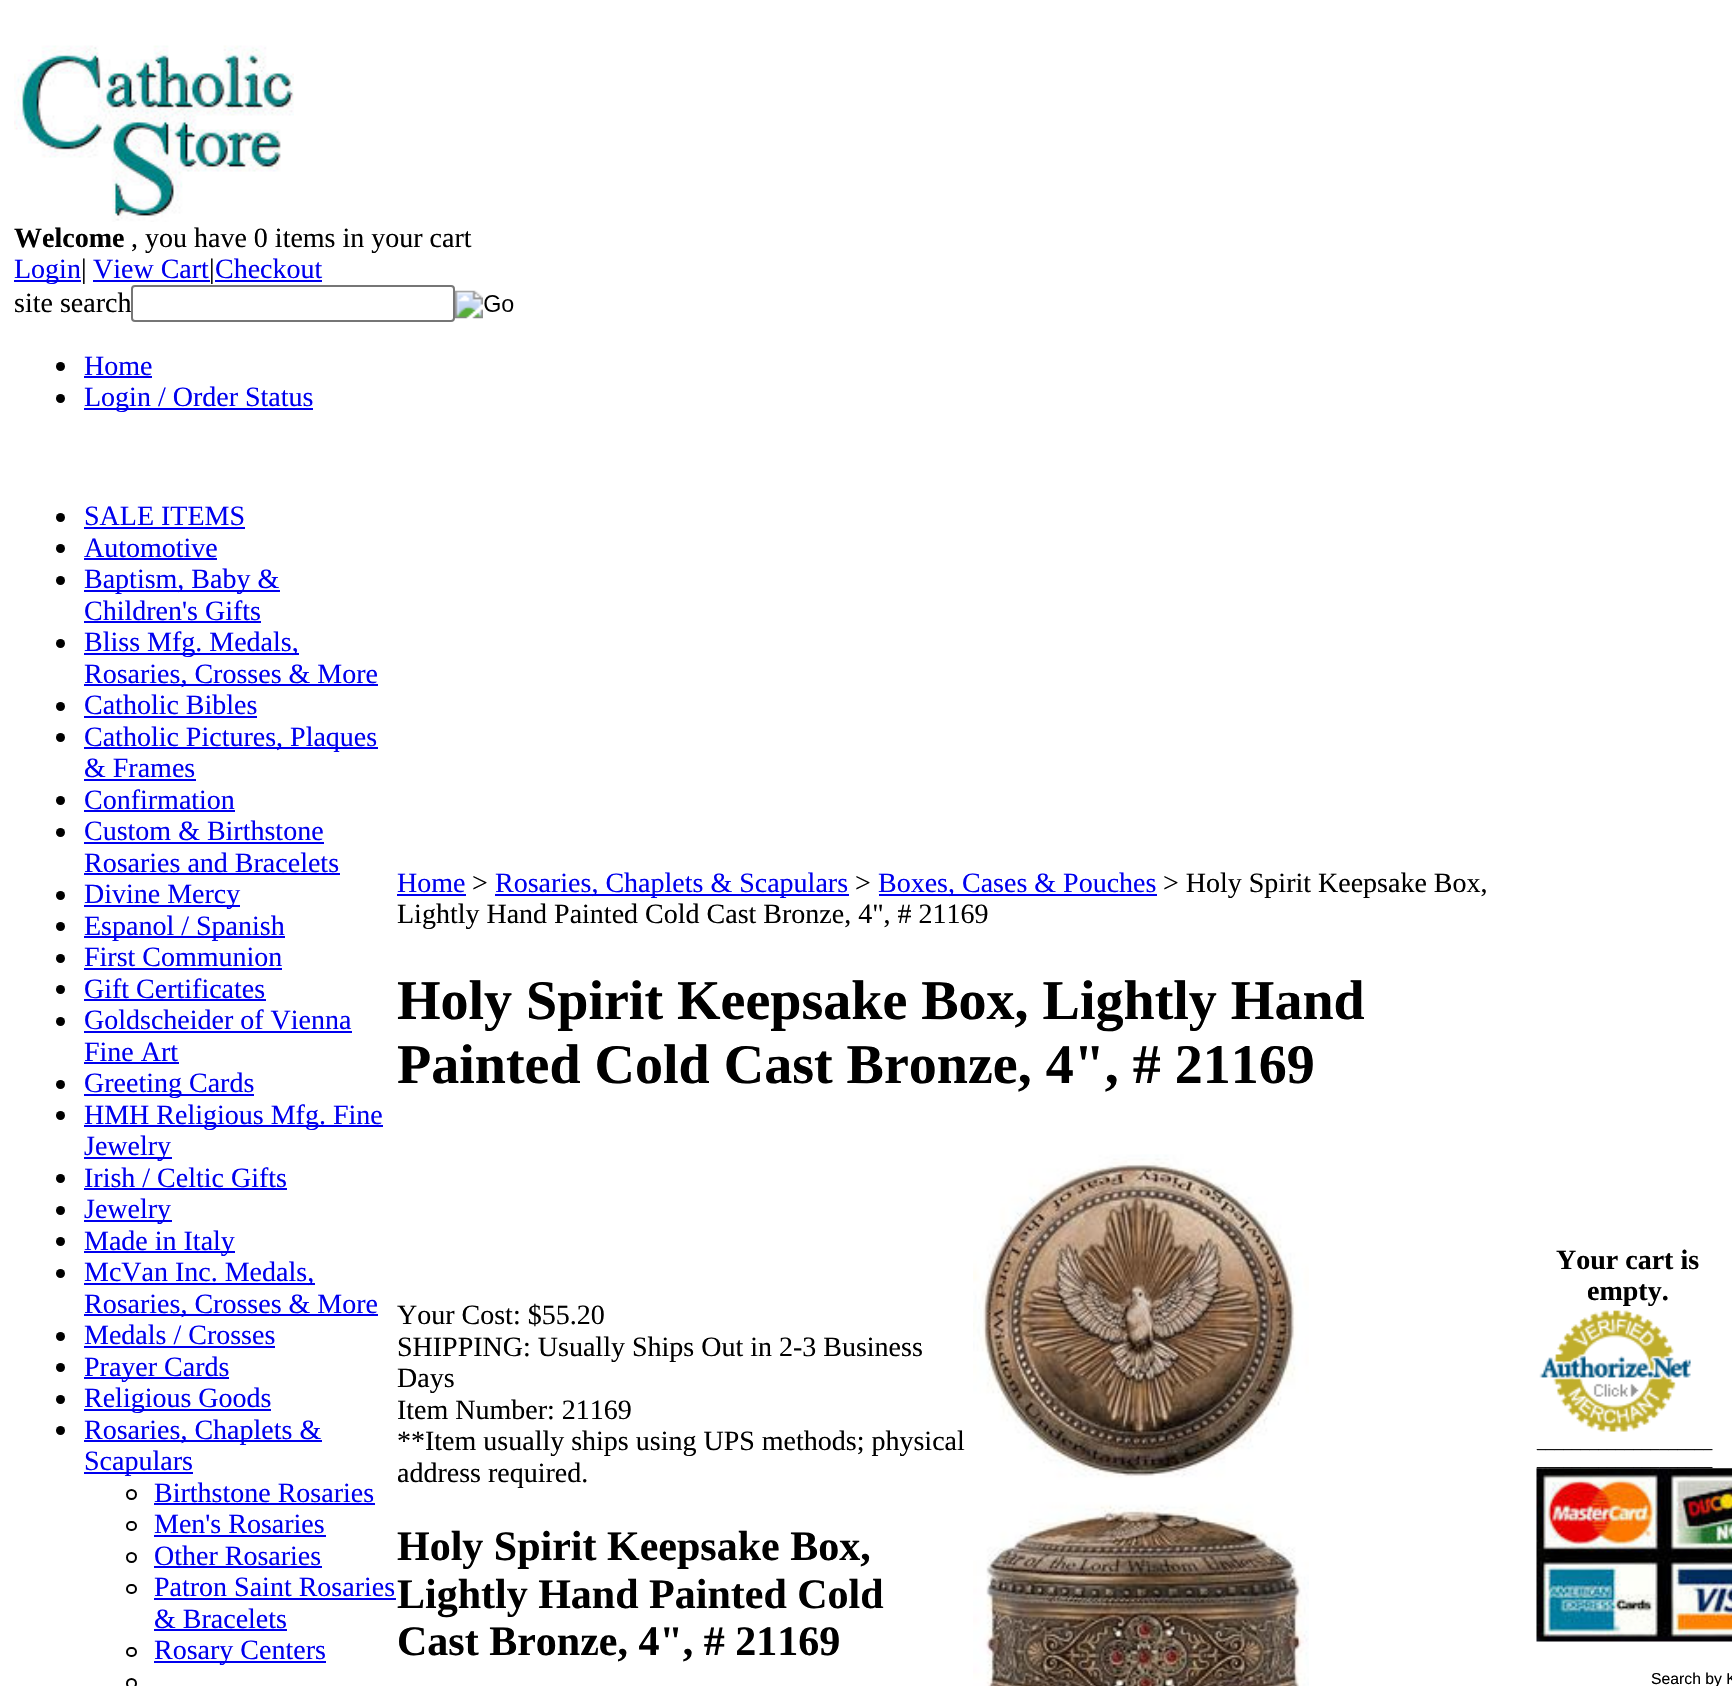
void draw(SkCanvas* canvas) {
    SkPaint paint;
    paint.setAntiAlias(true);
    canvas->clear(0xFFFFFFFF);
    canvas->drawImageRect(SkImages::DeferredFromEncodedData(SkData::MakeFromFileName("img1.png")), SkRect::MakeXYWH(14, 45, 280, 177), SkSamplingOptions());
    SkFont font1(fontMgr->matchFamilyStyle("Liberation Serif", SkFontStyle::Bold()), 28);
    font1.setSubpixel(true);
    paint.setColor(0xFF000000);
    canvas->drawString("Welcome", 14, 247, font1, paint);
    SkFont font2(fontMgr->matchFamilyStyle("Liberation Serif", SkFontStyle::Normal()), 28);
    font2.setSubpixel(true);
    canvas->drawString(", you have 0 items in your cart", 131, 247, font2, paint);
    paint.setColor(0xFF0000EE);
    canvas->drawRect(SkRect::MakeXYWH(14, 280, 67, 2), paint);
    canvas->drawString("Login", 14, 278, font2, paint);
    paint.setColor(0xFF000000);
    canvas->drawString("|", 81, 278, font2, paint);
    paint.setColor(0xFF0000EE);
    canvas->drawString("View Cart", 93, 278, font2, paint);
    canvas->drawRect(SkRect::MakeXYWH(93, 280, 117, 2), paint);
    paint.setColor(0xFF000000);
    canvas->drawString("|", 209, 278, font2, paint);
    paint.setColor(0xFF0000EE);
    canvas->drawString("Checkout", 215, 278, font2, paint);
    canvas->drawRect(SkRect::MakeXYWH(215, 280, 107, 2), paint);
    paint.setColor(0xFF000000);
    canvas->drawString("site search", 14, 312, font2, paint);
    paint.setStyle(SkPaint::kStroke_Style);
    paint.setStrokeWidth(2);
    paint.setColor(0xFF767676);
    canvas->drawRoundRect(SkRect::MakeXYWH(132, 286, 322, 35), 3, 3, paint);
    canvas->drawImageRect(SkImages::DeferredFromEncodedData(SkData::MakeFromFileName("img2.png")), SkRect::MakeXYWH(455, 290, 59, 29), SkSamplingOptions());
    paint.setStyle(SkPaint::kFill_Style);
    paint.setColor(0xFF000000);
    canvas->drawCircle(60.5f, 366.5f, 4.5f, paint);
    paint.setColor(0xFF0000EE);
    canvas->drawString("Home", 84, 375, font2, paint);
    canvas->drawRect(SkRect::MakeXYWH(84, 376, 68, 2), paint);
    paint.setColor(0xFF000000);
    canvas->drawCircle(60.5f, 398.5f, 4.5f, paint);
    paint.setColor(0xFF0000EE);
    canvas->drawRect(SkRect::MakeXYWH(84, 408, 229, 2), paint);
    canvas->drawString("Login / Order Status", 84, 406, font2, paint);
    paint.setColor(0xFF000000);
    canvas->drawCircle(60.5f, 517.5f, 4.5f, paint);
    paint.setColor(0xFF0000EE);
    canvas->drawString("SALE ITEMS", 84, 525, font2, paint);
    canvas->drawRect(SkRect::MakeXYWH(84, 527, 161, 2), paint);
    paint.setColor(0xFF000000);
    canvas->drawCircle(60.5f, 548.5f, 4.5f, paint);
    paint.setColor(0xFF0000EE);
    canvas->drawString("Automotive", 84, 557, font2, paint);
    canvas->drawRect(SkRect::MakeXYWH(84, 558, 133, 2), paint);
    paint.setColor(0xFF000000);
    canvas->drawCircle(60.5f, 580.5f, 4.5f, paint);
    paint.setColor(0xFF0000EE);
    canvas->drawRect(SkRect::MakeXYWH(84, 590, 196, 2), paint);
    canvas->drawString("Baptism, Baby &", 84, 588, font2, paint);
    canvas->drawString("Children's Gifts", 84, 620, font2, paint);
    canvas->drawRect(SkRect::MakeXYWH(84, 621, 177, 2), paint);
    paint.setColor(0xFF000000);
    canvas->drawCircle(60.5f, 643.5f, 4.5f, paint);
    paint.setColor(0xFF0000EE);
    canvas->drawRect(SkRect::MakeXYWH(84, 653, 215, 2), paint);
    canvas->drawString("Bliss Mfg. Medals,", 84, 651, font2, paint);
    canvas->drawRect(SkRect::MakeXYWH(84, 684, 294, 2), paint);
    canvas->drawString("Rosaries, Crosses & More", 84, 683, font2, paint);
    paint.setColor(0xFF000000);
    canvas->drawCircle(60.5f, 706.5f, 4.5f, paint);
    paint.setColor(0xFF0000EE);
    canvas->drawString("Catholic Bibles", 84, 714, font2, paint);
    canvas->drawRect(SkRect::MakeXYWH(84, 716, 173, 2), paint);
    paint.setColor(0xFF000000);
    canvas->drawCircle(60.5f, 737.5f, 4.5f, paint);
    paint.setColor(0xFF0000EE);
    canvas->drawRect(SkRect::MakeXYWH(84, 747, 294, 2), paint);
    canvas->drawString("Catholic Pictures, Plaques", 84, 746, font2, paint);
    canvas->drawString("& Frames", 84, 777, font2, paint);
    canvas->drawRect(SkRect::MakeXYWH(84, 779, 112, 2), paint);
    paint.setColor(0xFF000000);
    canvas->drawCircle(60.5f, 800.5f, 4.5f, paint);
    paint.setColor(0xFF0000EE);
    canvas->drawString("Confirmation", 84, 809, font2, paint);
    canvas->drawRect(SkRect::MakeXYWH(84, 810, 151, 2), paint);
    paint.setColor(0xFF000000);
    canvas->drawCircle(60.5f, 832.5f, 4.5f, paint);
    paint.setColor(0xFF0000EE);
    canvas->drawString("Custom & Birthstone", 84, 840, font2, paint);
    canvas->drawRect(SkRect::MakeXYWH(84, 842, 240, 2), paint);
    canvas->drawString("Rosaries and Bracelets", 84, 872, font2, paint);
    canvas->drawRect(SkRect::MakeXYWH(84, 873, 256, 2), paint);
    paint.setColor(0xFF000000);
    canvas->drawCircle(60.5f, 895.5f, 4.5f, paint);
    paint.setColor(0xFF0000EE);
    canvas->drawRect(SkRect::MakeXYWH(84, 905, 156, 2), paint);
    canvas->drawString("Divine Mercy", 84, 903, font2, paint);
    paint.setColor(0xFF000000);
    canvas->drawCircle(60.5f, 926.5f, 4.5f, paint);
    paint.setColor(0xFF0000EE);
    canvas->drawRect(SkRect::MakeXYWH(84, 936, 201, 2), paint);
    canvas->drawString("Espanol / Spanish", 84, 935, font2, paint);
    paint.setColor(0xFF000000);
    canvas->drawCircle(60.5f, 958.5f, 4.5f, paint);
    paint.setColor(0xFF0000EE);
    canvas->drawString("First Communion", 84, 966, font2, paint);
    canvas->drawRect(SkRect::MakeXYWH(84, 968, 198, 2), paint);
    paint.setColor(0xFF000000);
    canvas->drawCircle(60.5f, 989.5f, 4.5f, paint);
    paint.setColor(0xFF0000EE);
    canvas->drawString("Gift Certificates", 84, 998, font2, paint);
    canvas->drawRect(SkRect::MakeXYWH(84, 999, 182, 2), paint);
    paint.setColor(0xFF000000);
    canvas->drawCircle(60.5f, 1021.5f, 4.5f, paint);
    paint.setColor(0xFF0000EE);
    canvas->drawString("Goldscheider of Vienna", 84, 1029, font2, paint);
    canvas->drawRect(SkRect::MakeXYWH(84, 1031, 268, 2), paint);
    canvas->drawString("Fine Art", 84, 1061, font2, paint);
    canvas->drawRect(SkRect::MakeXYWH(84, 1062, 95, 2), paint);
    paint.setColor(0xFF000000);
    canvas->drawCircle(60.5f, 1084.5f, 4.5f, paint);
    paint.setColor(0xFF0000EE);
    canvas->drawRect(SkRect::MakeXYWH(84, 1094, 170, 2), paint);
    canvas->drawString("Greeting Cards", 84, 1092, font2, paint);
    paint.setColor(0xFF000000);
    canvas->drawCircle(60.5f, 1115.5f, 4.5f, paint);
    paint.setColor(0xFF0000EE);
    canvas->drawRect(SkRect::MakeXYWH(84, 1125, 299, 2), paint);
    canvas->drawString("HMH Religious Mfg. Fine", 84, 1124, font2, paint);
    canvas->drawRect(SkRect::MakeXYWH(84, 1157, 88, 2), paint);
    canvas->drawString("Jewelry", 84, 1155, font2, paint);
    paint.setColor(0xFF000000);
    canvas->drawCircle(60.5f, 1178.5f, 4.5f, paint);
    paint.setColor(0xFF0000EE);
    canvas->drawString("Irish / Celtic Gifts", 84, 1187, font2, paint);
    canvas->drawRect(SkRect::MakeXYWH(84, 1188, 203, 2), paint);
    paint.setColor(0xFF000000);
    canvas->drawCircle(60.5f, 1210.5f, 4.5f, paint);
    paint.setColor(0xFF0000EE);
    canvas->drawRect(SkRect::MakeXYWH(84, 1220, 88, 2), paint);
    canvas->drawString("Jewelry", 84, 1218, font2, paint);
    paint.setColor(0xFF000000);
    canvas->drawCircle(60.5f, 1241.5f, 4.5f, paint);
    paint.setColor(0xFF0000EE);
    canvas->drawRect(SkRect::MakeXYWH(84, 1251, 151, 2), paint);
    canvas->drawString("Made in Italy", 84, 1250, font2, paint);
    paint.setColor(0xFF000000);
    canvas->drawCircle(60.5f, 1273.5f, 4.5f, paint);
    paint.setColor(0xFF0000EE);
    canvas->drawRect(SkRect::MakeXYWH(84, 1283, 231, 2), paint);
    canvas->drawString("McVan Inc. Medals,", 84, 1281, font2, paint);
    canvas->drawRect(SkRect::MakeXYWH(84, 1314, 294, 2), paint);
    canvas->drawString("Rosaries, Crosses & More", 84, 1313, font2, paint);
    paint.setColor(0xFF000000);
    canvas->drawCircle(60.5f, 1336.5f, 4.5f, paint);
    paint.setColor(0xFF0000EE);
    canvas->drawString("Medals / Crosses", 84, 1344, font2, paint);
    canvas->drawRect(SkRect::MakeXYWH(84, 1346, 191, 2), paint);
    paint.setColor(0xFF000000);
    canvas->drawCircle(60.5f, 1367.5f, 4.5f, paint);
    paint.setColor(0xFF0000EE);
    canvas->drawRect(SkRect::MakeXYWH(84, 1377, 145, 2), paint);
    canvas->drawString("Prayer Cards", 84, 1376, font2, paint);
    paint.setColor(0xFF000000);
    canvas->drawCircle(60.5f, 1399.5f, 4.5f, paint);
    paint.setColor(0xFF0000EE);
    canvas->drawRect(SkRect::MakeXYWH(84, 1409, 187, 2), paint);
    canvas->drawString("Religious Goods", 84, 1407, font2, paint);
    paint.setColor(0xFF000000);
    canvas->drawCircle(60.5f, 1430.5f, 4.5f, paint);
    paint.setColor(0xFF0000EE);
    canvas->drawRect(SkRect::MakeXYWH(84, 1440, 238, 2), paint);
    canvas->drawString("Rosaries, Chaplets &", 84, 1439, font2, paint);
    canvas->drawRect(SkRect::MakeXYWH(84, 1472, 109, 2), paint);
    canvas->drawString("Scapulars", 84, 1470, font2, paint);
    paint.setStyle(SkPaint::kStroke_Style);
    paint.setColor(0xFF000000);
    canvas->drawCircle(131.5f, 1494.5f, 4.5f, paint);
    paint.setStyle(SkPaint::kFill_Style);
    paint.setColor(0xFF0000EE);
    canvas->drawString("Birthstone Rosaries", 154, 1502, font2, paint);
    canvas->drawRect(SkRect::MakeXYWH(154, 1503, 221, 2), paint);
    paint.setStyle(SkPaint::kStroke_Style);
    paint.setColor(0xFF000000);
    canvas->drawRoundRect(SkRect::MakeXYWH(127, 1522, 9, 8), 4, 4, paint);
    paint.setStyle(SkPaint::kFill_Style);
    paint.setColor(0xFF0000EE);
    canvas->drawString("Men's Rosaries", 154, 1533, font2, paint);
    canvas->drawRect(SkRect::MakeXYWH(154, 1535, 172, 2), paint);
    paint.setStyle(SkPaint::kStroke_Style);
    paint.setColor(0xFF000000);
    canvas->drawCircle(131.5f, 1557.5f, 4.5f, paint);
    paint.setStyle(SkPaint::kFill_Style);
    paint.setColor(0xFF0000EE);
    canvas->drawString("Other Rosaries", 154, 1565, font2, paint);
    canvas->drawRect(SkRect::MakeXYWH(154, 1566, 168, 2), paint);
    paint.setStyle(SkPaint::kStroke_Style);
    paint.setColor(0xFF000000);
    canvas->drawRoundRect(SkRect::MakeXYWH(127, 1585, 9, 8), 4, 4, paint);
    paint.setStyle(SkPaint::kFill_Style);
    paint.setColor(0xFF0000EE);
    canvas->drawString("Patron Saint Rosaries", 154, 1596, font2, paint);
    canvas->drawRect(SkRect::MakeXYWH(154, 1598, 242, 2), paint);
    canvas->drawString("& Bracelets", 154, 1628, font2, paint);
    canvas->drawRect(SkRect::MakeXYWH(154, 1629, 133, 2), paint);
    paint.setStyle(SkPaint::kStroke_Style);
    paint.setColor(0xFF000000);
    canvas->drawRoundRect(SkRect::MakeXYWH(127, 1648, 9, 8), 4, 4, paint);
    paint.setStyle(SkPaint::kFill_Style);
    paint.setColor(0xFF0000EE);
    canvas->drawRect(SkRect::MakeXYWH(154, 1661, 172, 2), paint);
    canvas->drawString("Rosary Centers", 154, 1659, font2, paint);
    paint.setStyle(SkPaint::kStroke_Style);
    paint.setColor(0xFF000000);
    canvas->drawCircle(131.5f, 1683.5f, 4.5f, paint);
    paint.setStyle(SkPaint::kFill_Style);
    paint.setColor(0xFF0000EE);
    canvas->drawString("Home", 397, 892, font2, paint);
    canvas->drawRect(SkRect::MakeXYWH(397, 894, 69, 2), paint);
    paint.setColor(0xFF000000);
    canvas->drawString(">", 472, 892, font2, paint);
    paint.setColor(0xFF0000EE);
    canvas->drawRect(SkRect::MakeXYWH(495, 894, 354, 2), paint);
    canvas->drawString("Rosaries, Chaplets & Scapulars", 495, 892, font2, paint);
    paint.setColor(0xFF000000);
    canvas->drawString(">", 855, 892, font2, paint);
    paint.setColor(0xFF0000EE);
    canvas->drawRect(SkRect::MakeXYWH(879, 894, 278, 2), paint);
    canvas->drawString("Boxes, Cases & Pouches", 878, 892, font2, paint);
    paint.setColor(0xFF000000);
    canvas->drawString("> Holy Spirit Keepsake Box,", 1163, 892, font2, paint);
    canvas->drawString("Lightly Hand Painted Cold Cast Bronze, 4\", # 21169", 397, 923, font2, paint);
    SkFont font3(fontMgr->matchFamilyStyle("Liberation Serif", SkFontStyle::Bold()), 56);
    font3.setSubpixel(true);
    canvas->drawString("Holy Spirit Keepsake Box, Lightly Hand", 397, 1019, font3, paint);
    canvas->drawString("Painted Cold Cast Bronze, 4\", # 21169", 397, 1083, font3, paint);
    canvas->drawString("Your Cost: $55.20", 397, 1324, font2, paint);
    canvas->drawString("SHIPPING: Usually Ships Out in 2-3 Business", 397, 1356, font2, paint);
    canvas->drawString("Days", 397, 1387, font2, paint);
    canvas->drawString("Item Number: 21169", 397, 1419, font2, paint);
    canvas->drawString("**Item usually ships using UPS methods; physical", 397, 1450, font2, paint);
    canvas->drawString("address required.", 397, 1482, font2, paint);
    SkFont font4(fontMgr->matchFamilyStyle("Liberation Serif", SkFontStyle::Bold()), 42);
    font4.setSubpixel(true);
    canvas->drawString("Holy Spirit Keepsake Box,", 397, 1560, font4, paint);
    canvas->drawString("Lightly Hand Painted Cold", 397, 1608, font4, paint);
    canvas->drawString("Cast Bronze, 4\", # 21169", 397, 1655, font4, paint);
    canvas->drawImageRect(SkImages::DeferredFromEncodedData(SkData::MakeFromFileName("img3.png")), SkRect::MakeXYWH(973, 1154, 336, 532), SkSamplingOptions());
    canvas->drawString("Your cart is", 1556, 1269, font1, paint);
    canvas->drawString("empty.", 1587, 1300, font1, paint);
    canvas->drawImageRect(SkImages::DeferredFromEncodedData(SkData::MakeFromFileName("img4.png")), SkRect::MakeXYWH(1539, 1310, 152, 122), SkSamplingOptions());
    SkFont font5(fontMgr->matchFamilyStyle("Liberation Sans", SkFontStyle::Normal()), 15.75f);
    font5.setSubpixel(true);
    canvas->drawString("____________________", 1537, 1447, font5, paint);
    canvas->drawString("____________________", 1537, 1465, font5, paint);
    canvas->drawImageRect(SkImages::DeferredFromEncodedData(SkData::MakeFromFileName("img5.png")), SkRect::MakeXYWH(1536, 1468, 196, 174), SkSamplingOptions());
    canvas->drawString("Search by K", 1651, 1684, font5, paint);
}
